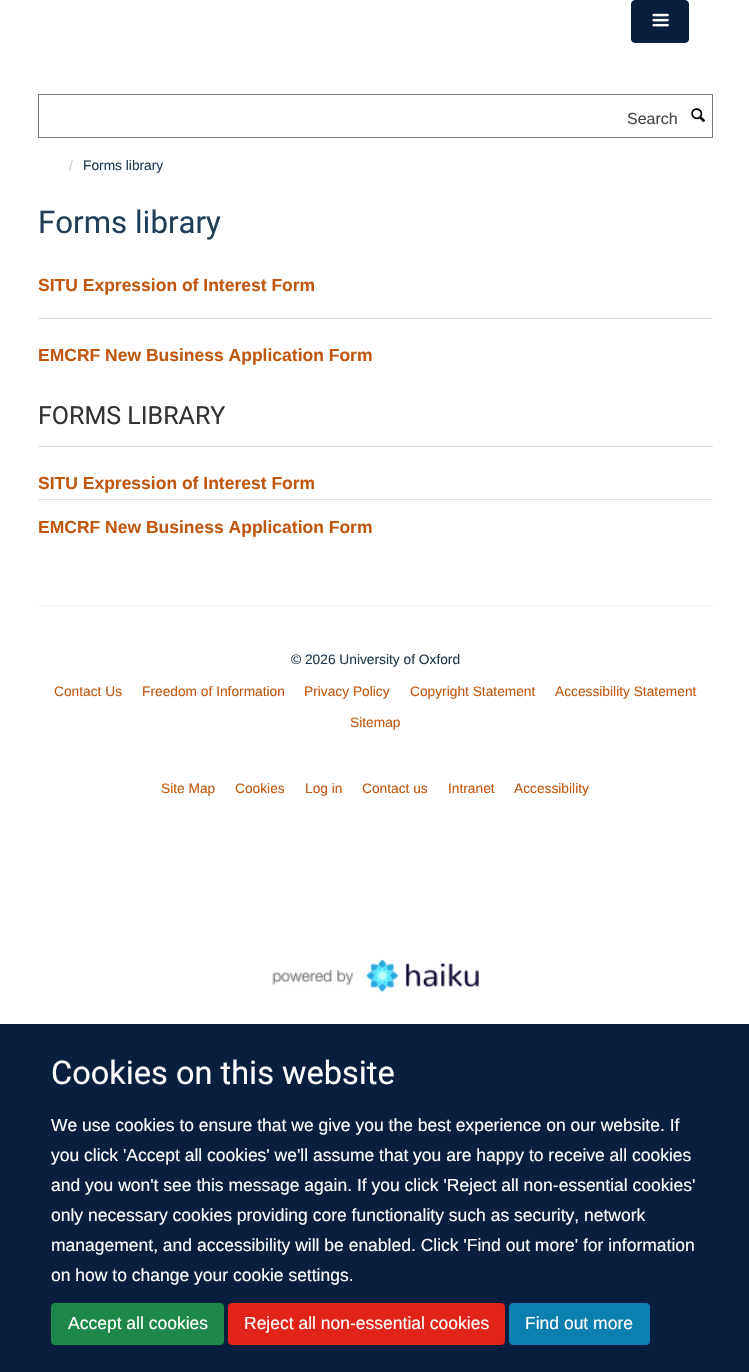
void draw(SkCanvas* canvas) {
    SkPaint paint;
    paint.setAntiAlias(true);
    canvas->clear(0xFFFFFFFF);
    paint.setColor(0xFF091F40);
    canvas->drawRoundRect(SkRect::MakeXYWH(631.5f, 0.5f, 57, 42), 3.5f, 3.5f, paint);
    paint.setStyle(SkPaint::kStroke_Style);
    paint.setStrokeWidth(1);
    canvas->drawRoundRect(SkRect::MakeXYWH(631.5f, 0.5f, 57, 42), 3.5f, 3.5f, paint);
    canvas->drawImageRect(SkImages::DeferredFromEncodedData(SkData::MakeFromFileName("img1.png")), SkRect::MakeXYWH(652, 13, 17, 14), SkSamplingOptions());
    paint.setColor(0xFF777777);
    canvas->drawRect(SkRect::MakeXYWH(38.5f, 94.5f, 674, 43), paint);
    SkFont font1(fontMgr->matchFamilyStyle("Liberation Sans", SkFontStyle::Normal()), 16);
    font1.setSubpixel(true);
    paint.setStyle(SkPaint::kFill_Style);
    paint.setColor(0xFF444444);
    canvas->drawString("Search", 627, 124, font1, paint);
    canvas->drawImageRect(SkImages::DeferredFromEncodedData(SkData::MakeFromFileName("img2.png")), SkRect::MakeXYWH(691, 108, 14, 14), SkSamplingOptions());
    SkFont font2(fontMgr->matchFamilyStyle("Liberation Sans", SkFontStyle::Normal()), 13.75f);
    font2.setSubpixel(true);
    paint.setColor(0xFFCCCCCC);
    canvas->drawString("/", 69, 170, font2, paint);
    paint.setColor(0xFF1D3850);
    canvas->drawString("Forms library", 83, 170, font2, paint);
    SkFont font3(fontMgr->matchFamilyStyle("Heebo", SkFontStyle::Normal()), 31.25f);
    font3.setSubpixel(true);
    paint.setColor(0xFF203E58);
    canvas->drawString("Forms library", 38, 233, font3, paint);
    paint.setColor(0xFFDFE1E4);
    canvas->drawRect(SkRect::MakeXYWH(38, 318, 675, 1), paint);
    SkFont font4(fontMgr->matchFamilyStyle("Liberation Sans", SkFontStyle::Bold()), 17.5f);
    font4.setSubpixel(true);
    paint.setColor(0xFFC1570E);
    canvas->drawString("SITU Expression of Interest Form", 38, 291, font4, paint);
    canvas->drawString("EMCRF New Business Application Form", 38, 361, font4, paint);
    paint.setColor(0xFFDDDDDD);
    canvas->drawRect(SkRect::MakeXYWH(38, 446, 675, 1), paint);
    SkFont font5(fontMgr->matchFamilyStyle("Heebo", SkFontStyle::Normal()), 25);
    font5.setSubpixel(true);
    paint.setColor(0xFF333333);
    canvas->drawString("FORMS LIBRARY", 38, 424, font5, paint);
    paint.setColor(0xFFDFE1E4);
    canvas->drawRect(SkRect::MakeXYWH(38, 499, 675, 1), paint);
    paint.setColor(0xFFC1570E);
    canvas->drawString("SITU Expression of Interest Form", 38, 489, font4, paint);
    canvas->drawString("EMCRF New Business Application Form", 38, 533, font4, paint);
    paint.setColor(0xFFEEEEEE);
    canvas->drawRect(SkRect::MakeXYWH(38, 605, 675, 1), paint);
    paint.setColor(0xFF1D3850);
    canvas->drawString("© 2026 University of Oxford", 291, 664, font2, paint);
    paint.setColor(0xFFC1570E);
    canvas->drawString("Contact Us", 54, 696, font2, paint);
    canvas->drawString("Freedom of Information", 142, 696, font2, paint);
    canvas->drawString("Privacy Policy", 304, 696, font2, paint);
    canvas->drawString("Copyright Statement", 410, 696, font2, paint);
    canvas->drawString("Accessibility Statement", 555, 696, font2, paint);
    canvas->drawString("Sitemap", 350, 727, font2, paint);
    canvas->drawString("Site Map", 161, 793, font2, paint);
    canvas->drawString("Cookies", 235, 793, font2, paint);
    canvas->drawString("Log in", 305, 793, font2, paint);
    canvas->drawString("Contact us", 362, 793, font2, paint);
    canvas->drawString("Intranet", 448, 793, font2, paint);
    canvas->drawString("Accessibility", 514, 793, font2, paint);
    canvas->drawImageRect(SkImages::DeferredFromEncodedData(SkData::MakeFromFileName("img3.png")), SkRect::MakeXYWH(272, 959, 207, 34), SkSamplingOptions());
    paint.setColor(0xFF091F40);
    canvas->drawRect(SkRect::MakeXYWH(0, 1024, 749, 348), paint);
    SkFont font6(fontMgr->matchFamilyStyle("Heebo", SkFontStyle::Normal()), 32.5f);
    font6.setSubpixel(true);
    paint.setColor(0xFFFFFFFF);
    canvas->drawString("Cookies on this website", 51, 1084, font6, paint);
    SkFont font7(fontMgr->matchFamilyStyle("Liberation Sans", SkFontStyle::Normal()), 17.5f);
    font7.setSubpixel(true);
    canvas->drawString("We use cookies to ensure that we give you the best experience on our website. If", 51, 1131, font7, paint);
    canvas->drawString("you click 'Accept all cookies' we'll assume that you are happy to receive all cookies", 51, 1161, font7, paint);
    canvas->drawString("and you won't see this message again. If you click 'Reject all non-essential cookies'", 51, 1191, font7, paint);
    canvas->drawString("only necessary cookies providing core functionality such as security, network", 51, 1221, font7, paint);
    canvas->drawString("management, and accessibility will be enabled. Click 'Find out more' for information", 51, 1251, font7, paint);
    canvas->drawString("on how to change your cookie settings.", 51, 1281, font7, paint);
    paint.setColor(0xFF1E874B);
    canvas->drawRoundRect(SkRect::MakeXYWH(51.5f, 1303.5f, 172, 41), 3.5f, 3.5f, paint);
    paint.setStyle(SkPaint::kStroke_Style);
    canvas->drawRoundRect(SkRect::MakeXYWH(51.5f, 1303.5f, 172, 41), 3.5f, 3.5f, paint);
    paint.setStyle(SkPaint::kFill_Style);
    paint.setColor(0xFFFFFFFF);
    canvas->drawString("Accept all cookies", 68, 1329, font7, paint);
    paint.setColor(0xFFE2231A);
    canvas->drawRoundRect(SkRect::MakeXYWH(228.5f, 1303.5f, 276, 41), 3.5f, 3.5f, paint);
    paint.setStyle(SkPaint::kStroke_Style);
    canvas->drawRoundRect(SkRect::MakeXYWH(228.5f, 1303.5f, 276, 41), 3.5f, 3.5f, paint);
    paint.setStyle(SkPaint::kFill_Style);
    paint.setColor(0xFFFFFFFF);
    canvas->drawString("Reject all non-essential cookies", 244, 1329, font7, paint);
    paint.setColor(0xFF0D7EB0);
    canvas->drawRoundRect(SkRect::MakeXYWH(509.5f, 1303.5f, 140, 41), 3.5f, 3.5f, paint);
    paint.setStyle(SkPaint::kStroke_Style);
    canvas->drawRoundRect(SkRect::MakeXYWH(509.5f, 1303.5f, 140, 41), 3.5f, 3.5f, paint);
    paint.setStyle(SkPaint::kFill_Style);
    paint.setColor(0xFFFFFFFF);
    canvas->drawString("Find out more", 525, 1329, font7, paint);
}
